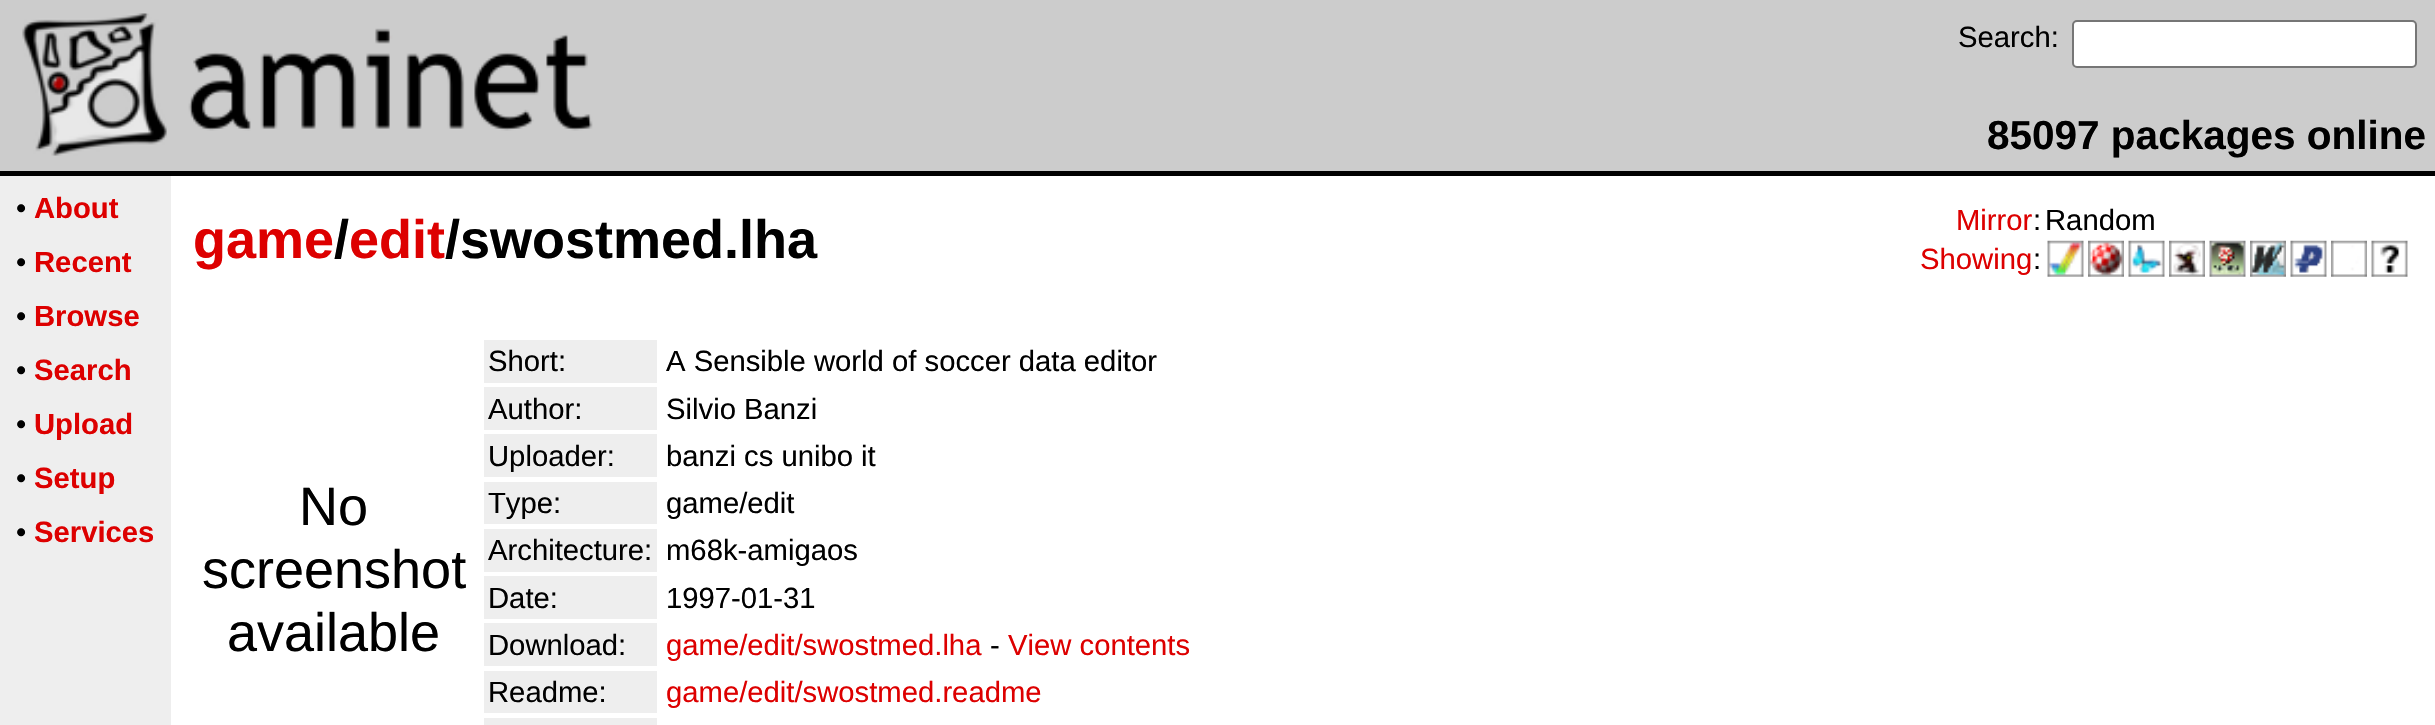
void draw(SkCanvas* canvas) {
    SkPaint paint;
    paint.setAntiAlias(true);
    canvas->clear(0xFFFFFFFF);
    paint.setColor(0xFFCCCCCC);
    canvas->drawRect(SkRect::MakeXYWH(0, 0, 2435, 171), paint);
    canvas->drawImageRect(SkImages::DeferredFromEncodedData(SkData::MakeFromFileName("img1.png")), SkRect::MakeXYWH(22, 13, 145, 143), SkSamplingOptions());
    canvas->drawImageRect(SkImages::DeferredFromEncodedData(SkData::MakeFromFileName("img2.png")), SkRect::MakeXYWH(188, 28, 405, 103), SkSamplingOptions());
    SkFont font1(fontMgr->matchFamilyStyle("Liberation Sans", SkFontStyle::Normal()), 29.25f);
    font1.setSubpixel(true);
    paint.setColor(0xFF000000);
    canvas->drawString("Search:", 1958, 47, font1, paint);
    paint.setColor(0xFFFFFFFF);
    canvas->drawRoundRect(SkRect::MakeXYWH(2073, 21, 343, 46), 4, 4, paint);
    paint.setStyle(SkPaint::kStroke_Style);
    paint.setStrokeWidth(2);
    paint.setColor(0xFF767676);
    canvas->drawRoundRect(SkRect::MakeXYWH(2073, 21, 343, 46), 4, 4, paint);
    SkFont font2(fontMgr->matchFamilyStyle("Liberation Sans", SkFontStyle::Bold()), 40.5f);
    font2.setSubpixel(true);
    paint.setStyle(SkPaint::kFill_Style);
    paint.setColor(0xFF000000);
    canvas->drawString("85097 packages online", 1987, 149, font2, paint);
    canvas->drawRect(SkRect::MakeXYWH(0, 171, 2435, 5), paint);
    paint.setColor(0xFFEEEEEE);
    canvas->drawRect(SkRect::MakeXYWH(0, 176, 171, 549), paint);
    paint.setColor(0xFF000000);
    canvas->drawString("•", 16, 218, font1, paint);
    SkFont font3(fontMgr->matchFamilyStyle("Liberation Sans", SkFontStyle::Bold()), 29.25f);
    font3.setSubpixel(true);
    paint.setColor(0xFFDD0000);
    canvas->drawString("About", 34, 218, font3, paint);
    paint.setColor(0xFF000000);
    canvas->drawString("•", 16, 272, font1, paint);
    paint.setColor(0xFFDD0000);
    canvas->drawString("Recent", 34, 272, font3, paint);
    paint.setColor(0xFF000000);
    canvas->drawString("•", 16, 326, font1, paint);
    paint.setColor(0xFFDD0000);
    canvas->drawString("Browse", 34, 326, font3, paint);
    paint.setColor(0xFF000000);
    canvas->drawString("•", 16, 380, font1, paint);
    paint.setColor(0xFFDD0000);
    canvas->drawString("Search", 34, 380, font3, paint);
    paint.setColor(0xFF000000);
    canvas->drawString("•", 16, 434, font1, paint);
    paint.setColor(0xFFDD0000);
    canvas->drawString("Upload", 34, 434, font3, paint);
    paint.setColor(0xFF000000);
    canvas->drawString("•", 16, 488, font1, paint);
    paint.setColor(0xFFDD0000);
    canvas->drawString("Setup", 34, 488, font3, paint);
    paint.setColor(0xFF000000);
    canvas->drawString("•", 16, 542, font1, paint);
    paint.setColor(0xFFDD0000);
    canvas->drawString("Services", 34, 542, font3, paint);
    SkFont font4(fontMgr->matchFamilyStyle("Liberation Sans", SkFontStyle::Bold()), 54);
    font4.setSubpixel(true);
    canvas->drawString("game edit", 193, 258, font4, paint);
    paint.setColor(0xFF000000);
    canvas->drawString("/", 334, 258, font4, paint);
    canvas->drawString("/swostmed.lha", 445, 258, font4, paint);
    paint.setColor(0xFFDD0000);
    canvas->drawString("Mirror", 1956, 230, font1, paint);
    paint.setColor(0xFF000000);
    canvas->drawString(":", 2033, 230, font1, paint);
    canvas->drawString("Random", 2045, 230, font1, paint);
    paint.setColor(0xFFDD0000);
    canvas->drawString("Showing", 1920, 269, font1, paint);
    paint.setColor(0xFF000000);
    canvas->drawString(":", 2033, 269, font1, paint);
    canvas->drawImageRect(SkImages::DeferredFromEncodedData(SkData::MakeFromFileName("img3.png")), SkRect::MakeXYWH(2047, 240, 37, 37), SkSamplingOptions());
    canvas->drawImageRect(SkImages::DeferredFromEncodedData(SkData::MakeFromFileName("img4.png")), SkRect::MakeXYWH(2088, 240, 36, 37), SkSamplingOptions());
    canvas->drawImageRect(SkImages::DeferredFromEncodedData(SkData::MakeFromFileName("img5.png")), SkRect::MakeXYWH(2128, 240, 37, 37), SkSamplingOptions());
    canvas->drawImageRect(SkImages::DeferredFromEncodedData(SkData::MakeFromFileName("img6.png")), SkRect::MakeXYWH(2169, 240, 36, 37), SkSamplingOptions());
    canvas->drawImageRect(SkImages::DeferredFromEncodedData(SkData::MakeFromFileName("img7.png")), SkRect::MakeXYWH(2209, 240, 37, 37), SkSamplingOptions());
    canvas->drawImageRect(SkImages::DeferredFromEncodedData(SkData::MakeFromFileName("img8.png")), SkRect::MakeXYWH(2250, 240, 36, 37), SkSamplingOptions());
    canvas->drawImageRect(SkImages::DeferredFromEncodedData(SkData::MakeFromFileName("img9.png")), SkRect::MakeXYWH(2290, 240, 37, 37), SkSamplingOptions());
    canvas->drawImageRect(SkImages::DeferredFromEncodedData(SkData::MakeFromFileName("img10.png")), SkRect::MakeXYWH(2331, 240, 36, 37), SkSamplingOptions());
    canvas->drawImageRect(SkImages::DeferredFromEncodedData(SkData::MakeFromFileName("img11.png")), SkRect::MakeXYWH(2371, 240, 37, 37), SkSamplingOptions());
    SkFont font5(fontMgr->matchFamilyStyle("Liberation Sans", SkFontStyle::Normal()), 54);
    font5.setSubpixel(true);
    canvas->drawString("No", 299, 525, font5, paint);
    canvas->drawString("screenshot", 202, 588, font5, paint);
    canvas->drawString("available", 227, 651, font5, paint);
    paint.setColor(0xFFEEEEEE);
    canvas->drawRect(SkRect::MakeXYWH(484, 340, 173, 43), paint);
    paint.setColor(0xFF000000);
    canvas->drawString("Short:", 488, 371, font1, paint);
    canvas->drawString("A Sensible world of soccer data editor", 666, 371, font1, paint);
    paint.setColor(0xFFEEEEEE);
    canvas->drawRect(SkRect::MakeXYWH(484, 387, 173, 43), paint);
    paint.setColor(0xFF000000);
    canvas->drawString("Author:", 488, 419, font1, paint);
    canvas->drawString("Silvio Banzi", 666, 419, font1, paint);
    paint.setColor(0xFFEEEEEE);
    canvas->drawRect(SkRect::MakeXYWH(484, 434, 173, 43), paint);
    paint.setColor(0xFF000000);
    canvas->drawString("Uploader:", 488, 466, font1, paint);
    canvas->drawString("banzi cs unibo it", 666, 466, font1, paint);
    paint.setColor(0xFFEEEEEE);
    canvas->drawRect(SkRect::MakeXYWH(484, 482, 173, 42), paint);
    paint.setColor(0xFF000000);
    canvas->drawString("Type:", 488, 513, font1, paint);
    canvas->drawString("game/edit", 666, 513, font1, paint);
    paint.setColor(0xFFEEEEEE);
    canvas->drawRect(SkRect::MakeXYWH(484, 529, 173, 43), paint);
    paint.setColor(0xFF000000);
    canvas->drawString("Architecture:", 488, 560, font1, paint);
    canvas->drawString("m68k-amigaos", 666, 560, font1, paint);
    paint.setColor(0xFFEEEEEE);
    canvas->drawRect(SkRect::MakeXYWH(484, 576, 173, 43), paint);
    paint.setColor(0xFF000000);
    canvas->drawString("Date:", 488, 608, font1, paint);
    canvas->drawString("1997-01-31", 666, 608, font1, paint);
    paint.setColor(0xFFEEEEEE);
    canvas->drawRect(SkRect::MakeXYWH(484, 623, 173, 43), paint);
    paint.setColor(0xFF000000);
    canvas->drawString("Download:", 488, 655, font1, paint);
    paint.setColor(0xFFDD0000);
    canvas->drawString("game/edit/swostmed.lha", 666, 655, font1, paint);
    paint.setColor(0xFF000000);
    canvas->drawString("-", 990, 655, font1, paint);
    paint.setColor(0xFFDD0000);
    canvas->drawString("View contents", 1008, 655, font1, paint);
    paint.setColor(0xFFEEEEEE);
    canvas->drawRect(SkRect::MakeXYWH(484, 671, 173, 42), paint);
    paint.setColor(0xFF000000);
    canvas->drawString("Readme:", 488, 702, font1, paint);
    paint.setColor(0xFFDD0000);
    canvas->drawString("game/edit/swostmed.readme", 666, 702, font1, paint);
    paint.setColor(0xFFEEEEEE);
    canvas->drawRect(SkRect::MakeXYWH(484, 718, 173, 7), paint);
}
